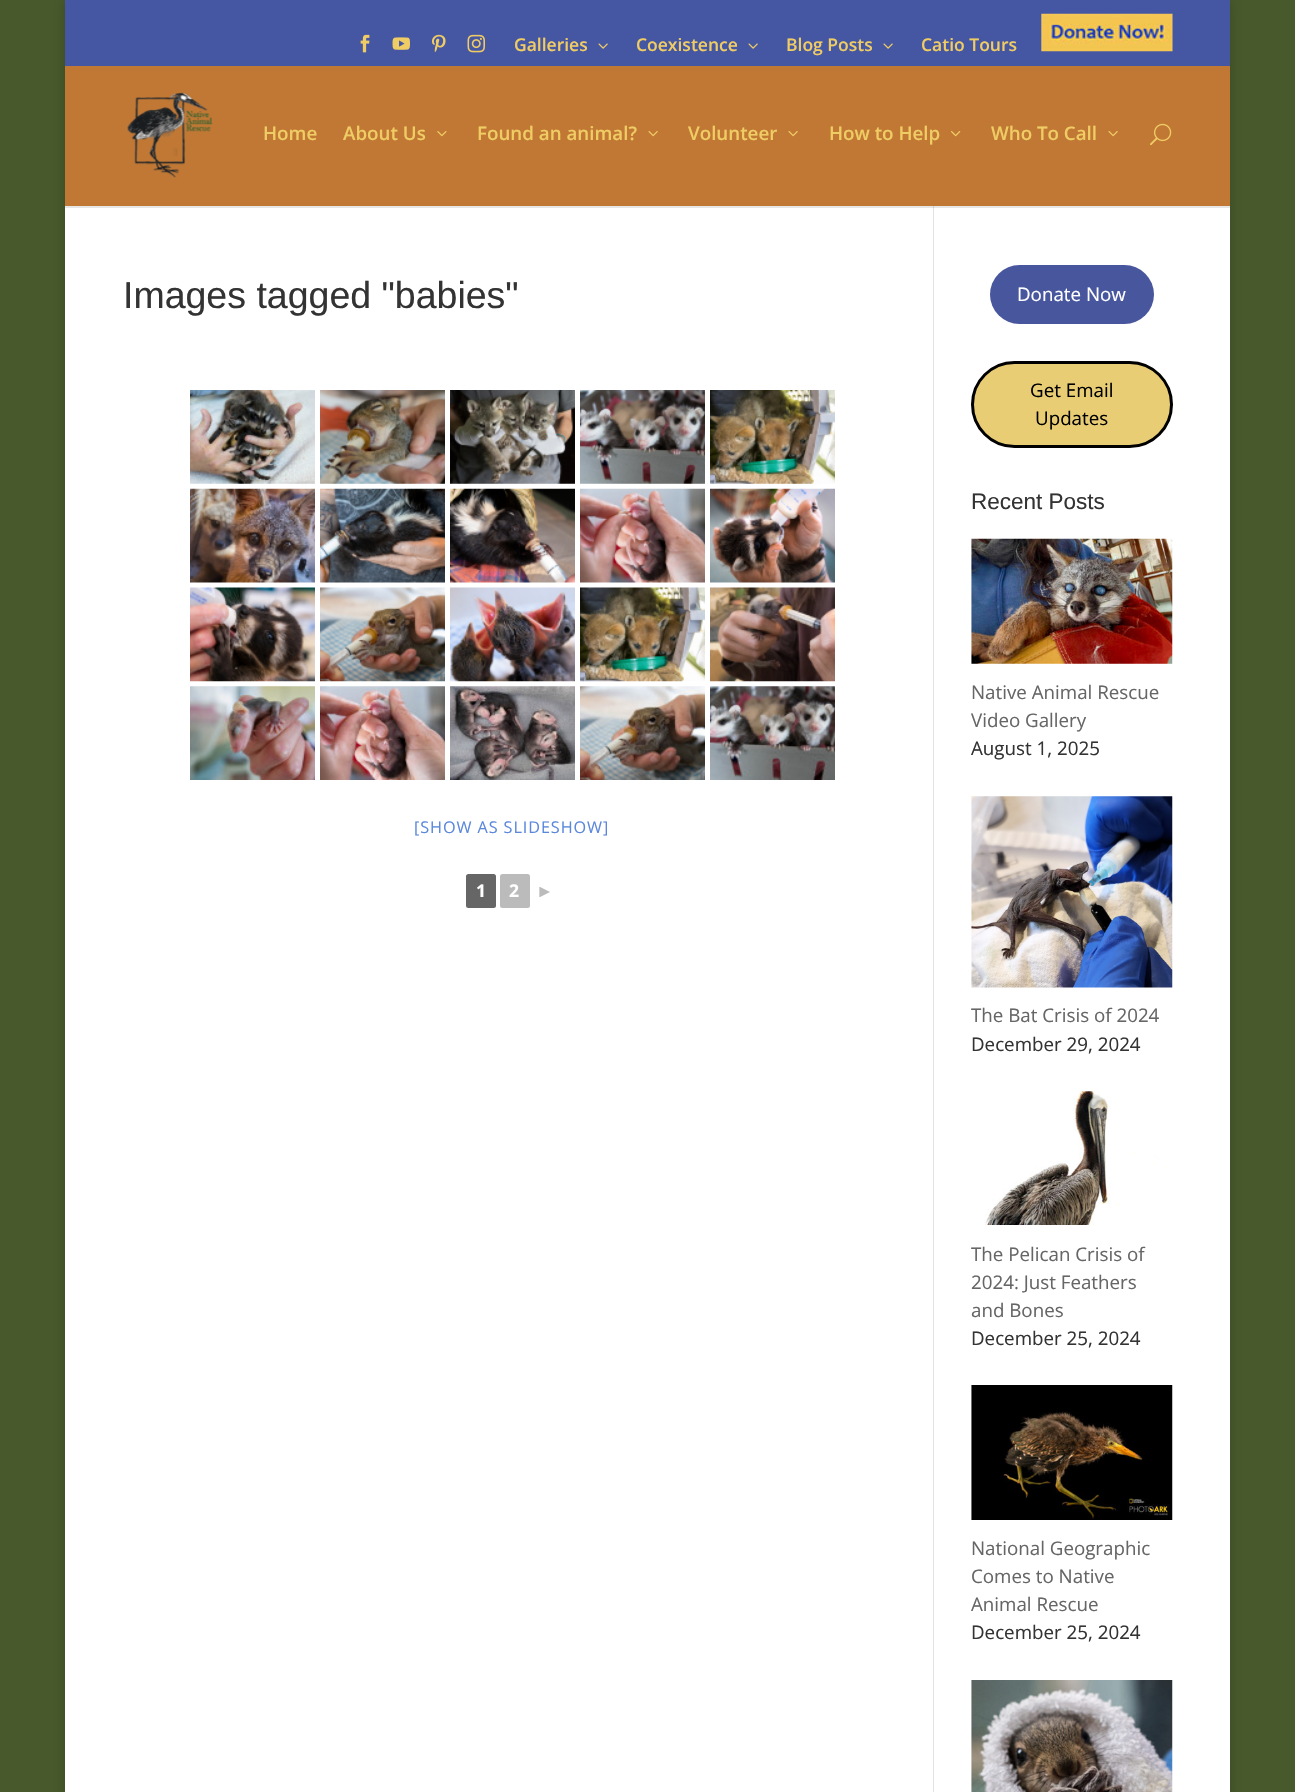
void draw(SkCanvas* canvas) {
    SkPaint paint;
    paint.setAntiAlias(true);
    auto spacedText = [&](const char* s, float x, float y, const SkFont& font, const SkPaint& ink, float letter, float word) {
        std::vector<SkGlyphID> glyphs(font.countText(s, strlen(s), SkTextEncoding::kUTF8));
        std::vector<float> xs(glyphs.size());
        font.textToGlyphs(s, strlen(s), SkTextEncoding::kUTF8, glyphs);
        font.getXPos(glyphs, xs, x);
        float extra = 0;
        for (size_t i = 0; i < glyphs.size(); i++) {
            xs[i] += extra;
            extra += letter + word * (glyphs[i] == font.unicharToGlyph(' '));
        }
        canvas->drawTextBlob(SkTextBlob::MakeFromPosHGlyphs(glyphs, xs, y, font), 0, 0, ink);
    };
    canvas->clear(0xFF485A2C);
    paint.setColor(0x33000000);
    paint.setMaskFilter(SkMaskFilter::MakeBlur(kNormal_SkBlurStyle, 6));
    canvas->drawRect(SkRect::MakeXYWH(65, 0, 1165, 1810), paint);
    paint.setMaskFilter(nullptr);
    paint.setColor(0xFF4556A3);
    canvas->drawRect(SkRect::MakeXYWH(65, 0, 1165, 66), paint);
    canvas->drawImageRect(SkImages::DeferredFromEncodedData(SkData::MakeFromFileName("img1.png")), SkRect::MakeXYWH(360, 34, 10, 19), SkSamplingOptions());
    canvas->drawImageRect(SkImages::DeferredFromEncodedData(SkData::MakeFromFileName("img2.png")), SkRect::MakeXYWH(392, 37, 18, 13), SkSamplingOptions());
    canvas->drawImageRect(SkImages::DeferredFromEncodedData(SkData::MakeFromFileName("img3.png")), SkRect::MakeXYWH(432, 34, 14, 19), SkSamplingOptions());
    canvas->drawImageRect(SkImages::DeferredFromEncodedData(SkData::MakeFromFileName("img4.png")), SkRect::MakeXYWH(467, 34, 18, 19), SkSamplingOptions());
    SkFont font1(fontMgr->matchFamilyStyle("Open Sans", SkFontStyle(600, SkFontStyle::kNormal_Width, SkFontStyle::kUpright_Slant)), 17.5f);
    font1.setSubpixel(true);
    paint.setColor(0xFFEFCC64);
    canvas->drawString("Galleries", 514, 51, font1, paint);
    canvas->drawImageRect(SkImages::DeferredFromEncodedData(SkData::MakeFromFileName("img5.png")), SkRect::MakeXYWH(598, 43, 10, 6), SkSamplingOptions());
    canvas->drawString("Coexistence", 636, 51, font1, paint);
    canvas->drawImageRect(SkImages::DeferredFromEncodedData(SkData::MakeFromFileName("img5.png")), SkRect::MakeXYWH(748, 43, 10, 6), SkSamplingOptions());
    canvas->drawString("Blog Posts", 786, 51, font1, paint);
    canvas->drawImageRect(SkImages::DeferredFromEncodedData(SkData::MakeFromFileName("img5.png")), SkRect::MakeXYWH(883, 43, 10, 6), SkSamplingOptions());
    canvas->drawString("Catio Tours", 921, 51, font1, paint);
    canvas->drawImageRect(SkImages::DeferredFromEncodedData(SkData::MakeFromFileName("img6.png")), SkRect::MakeXYWH(1041, 13, 132, 39), SkSamplingOptions());
    paint.setColor(0xFFC17834);
    canvas->drawRect(SkRect::MakeXYWH(65, 66, 1165, 140), paint);
    canvas->drawImageRect(SkImages::DeferredFromEncodedData(SkData::MakeFromFileName("img7.png")), SkRect::MakeXYWH(127, 92, 86, 86), SkSamplingOptions());
    SkFont font2(fontMgr->matchFamilyStyle("Open Sans", SkFontStyle(600, SkFontStyle::kNormal_Width, SkFontStyle::kUpright_Slant)), 18.75f);
    font2.setSubpixel(true);
    paint.setColor(0xFFEFCC64);
    canvas->drawString("Home", 263, 140, font2, paint);
    canvas->drawString("About Us", 343, 140, font2, paint);
    canvas->drawImageRect(SkImages::DeferredFromEncodedData(SkData::MakeFromFileName("img8.png")), SkRect::MakeXYWH(437, 131, 10, 6), SkSamplingOptions());
    canvas->drawString("Found an animal?", 477, 140, font2, paint);
    canvas->drawImageRect(SkImages::DeferredFromEncodedData(SkData::MakeFromFileName("img9.png")), SkRect::MakeXYWH(648, 131, 10, 6), SkSamplingOptions());
    canvas->drawString("Volunteer", 688, 140, font2, paint);
    canvas->drawImageRect(SkImages::DeferredFromEncodedData(SkData::MakeFromFileName("img9.png")), SkRect::MakeXYWH(788, 131, 10, 6), SkSamplingOptions());
    canvas->drawString("How to Help", 829, 140, font2, paint);
    canvas->drawImageRect(SkImages::DeferredFromEncodedData(SkData::MakeFromFileName("img10.png")), SkRect::MakeXYWH(951, 131, 10, 6), SkSamplingOptions());
    canvas->drawString("Who To Call", 991, 140, font2, paint);
    canvas->drawImageRect(SkImages::DeferredFromEncodedData(SkData::MakeFromFileName("img9.png")), SkRect::MakeXYWH(1108, 131, 10, 6), SkSamplingOptions());
    canvas->drawImageRect(SkImages::DeferredFromEncodedData(SkData::MakeFromFileName("img11.png")), SkRect::MakeXYWH(1150, 123, 22, 23), SkSamplingOptions());
    paint.setColor(0xFFFFFFFF);
    canvas->drawRect(SkRect::MakeXYWH(65, 208, 1165, 1584), paint);
    paint.setColor(0xFFE6E6E6);
    canvas->drawRect(SkRect::MakeXYWH(65, 206, 1165, 2), paint);
    paint.setColor(0xFFE2E2E2);
    canvas->drawRect(SkRect::MakeXYWH(933, 208, 1, 1584), paint);
    paint.setColor(0xFFCBCBCB);
    canvas->drawRect(SkRect::MakeXYWH(933, 206, 1, 2), paint);
    SkFont font3(fontMgr->matchFamilyStyle("Liberation Sans", SkFontStyle::Normal()), 37.5f);
    font3.setSubpixel(true);
    paint.setColor(0xFF333333);
    canvas->drawString("Images tagged \"babies\"", 123, 308, font3, paint);
    canvas->drawImageRect(SkImages::DeferredFromEncodedData(SkData::MakeFromFileName("img12.png")), SkRect::MakeXYWH(190, 390, 125, 94), SkSamplingOptions());
    canvas->drawImageRect(SkImages::DeferredFromEncodedData(SkData::MakeFromFileName("img13.png")), SkRect::MakeXYWH(320, 390, 125, 94), SkSamplingOptions());
    canvas->drawImageRect(SkImages::DeferredFromEncodedData(SkData::MakeFromFileName("img14.png")), SkRect::MakeXYWH(450, 390, 125, 94), SkSamplingOptions());
    canvas->drawImageRect(SkImages::DeferredFromEncodedData(SkData::MakeFromFileName("img15.png")), SkRect::MakeXYWH(580, 390, 125, 94), SkSamplingOptions());
    canvas->drawImageRect(SkImages::DeferredFromEncodedData(SkData::MakeFromFileName("img16.png")), SkRect::MakeXYWH(710, 390, 125, 94), SkSamplingOptions());
    canvas->drawImageRect(SkImages::DeferredFromEncodedData(SkData::MakeFromFileName("img17.png")), SkRect::MakeXYWH(190, 488, 125, 95), SkSamplingOptions());
    canvas->drawImageRect(SkImages::DeferredFromEncodedData(SkData::MakeFromFileName("img18.png")), SkRect::MakeXYWH(320, 488, 125, 95), SkSamplingOptions());
    canvas->drawImageRect(SkImages::DeferredFromEncodedData(SkData::MakeFromFileName("img19.png")), SkRect::MakeXYWH(450, 488, 125, 95), SkSamplingOptions());
    canvas->drawImageRect(SkImages::DeferredFromEncodedData(SkData::MakeFromFileName("img20.png")), SkRect::MakeXYWH(580, 488, 125, 95), SkSamplingOptions());
    canvas->drawImageRect(SkImages::DeferredFromEncodedData(SkData::MakeFromFileName("img21.png")), SkRect::MakeXYWH(710, 488, 125, 95), SkSamplingOptions());
    canvas->drawImageRect(SkImages::DeferredFromEncodedData(SkData::MakeFromFileName("img22.png")), SkRect::MakeXYWH(190, 587, 125, 95), SkSamplingOptions());
    canvas->drawImageRect(SkImages::DeferredFromEncodedData(SkData::MakeFromFileName("img23.png")), SkRect::MakeXYWH(320, 587, 125, 95), SkSamplingOptions());
    canvas->drawImageRect(SkImages::DeferredFromEncodedData(SkData::MakeFromFileName("img24.png")), SkRect::MakeXYWH(450, 587, 125, 95), SkSamplingOptions());
    canvas->drawImageRect(SkImages::DeferredFromEncodedData(SkData::MakeFromFileName("img25.png")), SkRect::MakeXYWH(580, 587, 125, 95), SkSamplingOptions());
    canvas->drawImageRect(SkImages::DeferredFromEncodedData(SkData::MakeFromFileName("img26.png")), SkRect::MakeXYWH(710, 587, 125, 95), SkSamplingOptions());
    canvas->drawImageRect(SkImages::DeferredFromEncodedData(SkData::MakeFromFileName("img27.png")), SkRect::MakeXYWH(190, 686, 125, 94), SkSamplingOptions());
    canvas->drawImageRect(SkImages::DeferredFromEncodedData(SkData::MakeFromFileName("img28.png")), SkRect::MakeXYWH(320, 686, 125, 94), SkSamplingOptions());
    canvas->drawImageRect(SkImages::DeferredFromEncodedData(SkData::MakeFromFileName("img29.png")), SkRect::MakeXYWH(450, 686, 125, 94), SkSamplingOptions());
    canvas->drawImageRect(SkImages::DeferredFromEncodedData(SkData::MakeFromFileName("img30.png")), SkRect::MakeXYWH(580, 686, 125, 94), SkSamplingOptions());
    canvas->drawImageRect(SkImages::DeferredFromEncodedData(SkData::MakeFromFileName("img31.png")), SkRect::MakeXYWH(710, 686, 125, 94), SkSamplingOptions());
    SkFont font4(fontMgr->matchFamilyStyle("Open Sans", SkFontStyle::Normal()), 16.25f);
    font4.setSubpixel(true);
    paint.setColor(0xFF5C88DB);
    spacedText("[SHOW AS SLIDESHOW]", 414, 833, font4, paint, 0.9f, 0);
    paint.setColor(0xFF666666);
    canvas->drawRoundRect(SkRect::MakeXYWH(466, 874, 30, 34), 2.5f, 2.5f, paint);
    SkFont font5(fontMgr->matchFamilyStyle("Open Sans", SkFontStyle::Bold()), 17.5f);
    font5.setSubpixel(true);
    paint.setColor(0xFFFFFFFF);
    canvas->drawString("1", 476, 897, font5, paint);
    paint.setColor(0xFFBBBBBB);
    canvas->drawRoundRect(SkRect::MakeXYWH(500, 874, 30, 34), 2.5f, 2.5f, paint);
    paint.setColor(0xFFFFFFFF);
    canvas->drawString("2", 509, 897, font5, paint);
    SkFont font6(fontMgr->matchFamilyStyle("Liberation Sans", SkFontStyle::Bold()), 17.5f);
    font6.setSubpixel(true);
    paint.setColor(0xFFBBBBBB);
    canvas->drawString("►", 536, 897, font6, paint);
    paint.setColor(0xFF48569E);
    canvas->drawRoundRect(SkRect::MakeXYWH(990, 265, 164, 59), 29.5f, 29.5f, paint);
    SkFont font7(fontMgr->matchFamilyStyle("Open Sans", SkFontStyle::Normal()), 18.75f);
    font7.setSubpixel(true);
    paint.setColor(0xFFFFFFFF);
    canvas->drawString("Donate Now", 1017, 301, font7, paint);
    paint.setColor(0xFFE9CD74);
    canvas->drawRoundRect(SkRect::MakeXYWH(972.5f, 362.5f, 199, 84), 42, 42, paint);
    paint.setStyle(SkPaint::kStroke_Style);
    paint.setStrokeWidth(3);
    paint.setColor(0xFF000000);
    canvas->drawRoundRect(SkRect::MakeXYWH(972.5f, 362.5f, 199, 84), 42, 42, paint);
    paint.setStyle(SkPaint::kFill_Style);
    canvas->drawString("Get Email", 1030, 397, font7, paint);
    canvas->drawString("Updates", 1035, 425, font7, paint);
    SkFont font8(fontMgr->matchFamilyStyle("Liberation Sans", SkFontStyle::Normal()), 22.5f);
    font8.setSubpixel(true);
    paint.setColor(0xFF333333);
    canvas->drawString("Recent Posts", 971, 509, font8, paint);
    canvas->drawImageRect(SkImages::DeferredFromEncodedData(SkData::MakeFromFileName("img32.png")), SkRect::MakeXYWH(971, 538, 202, 126), SkSamplingOptions());
    paint.setColor(0xFF666666);
    canvas->drawString("Native Animal Rescue", 971, 699, font7, paint);
    canvas->drawString("Video Gallery", 971, 727, font7, paint);
    paint.setColor(0xFF333333);
    canvas->drawString("August 1, 2025", 971, 755, font7, paint);
    canvas->drawImageRect(SkImages::DeferredFromEncodedData(SkData::MakeFromFileName("img33.png")), SkRect::MakeXYWH(971, 796, 202, 192), SkSamplingOptions());
    paint.setColor(0xFF666666);
    canvas->drawString("The Bat Crisis of 2024", 971, 1022, font7, paint);
    paint.setColor(0xFF333333);
    canvas->drawString("December 29, 2024", 971, 1051, font7, paint);
    canvas->drawImageRect(SkImages::DeferredFromEncodedData(SkData::MakeFromFileName("img34.png")), SkRect::MakeXYWH(984, 1091, 186, 134), SkSamplingOptions());
    paint.setColor(0xFF666666);
    canvas->drawString("The Pelican Crisis of", 971, 1261, font7, paint);
    canvas->drawString("2024: Just Feathers", 971, 1289, font7, paint);
    canvas->drawString("and Bones", 971, 1317, font7, paint);
    paint.setColor(0xFF333333);
    canvas->drawString("December 25, 2024", 971, 1345, font7, paint);
    canvas->drawImageRect(SkImages::DeferredFromEncodedData(SkData::MakeFromFileName("img35.png")), SkRect::MakeXYWH(971, 1385, 202, 135), SkSamplingOptions());
    paint.setColor(0xFF666666);
    canvas->drawString("National Geographic", 971, 1555, font7, paint);
    canvas->drawString("Comes to Native", 971, 1583, font7, paint);
    canvas->drawString("Animal Rescue", 971, 1611, font7, paint);
    paint.setColor(0xFF333333);
    canvas->drawString("December 25, 2024", 971, 1639, font7, paint);
    canvas->drawImageRect(SkImages::DeferredFromEncodedData(SkData::MakeFromFileName("img36.png")), SkRect::MakeXYWH(971, 1680, 202, 112), SkSamplingOptions());
}
